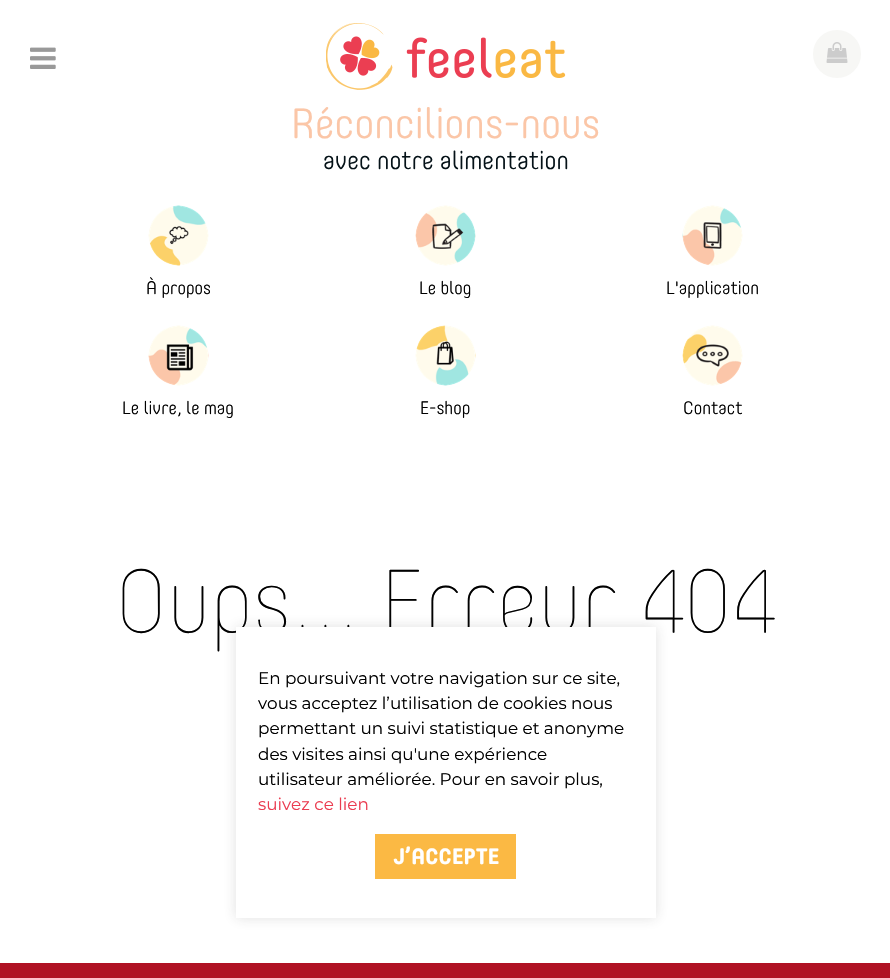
void draw(SkCanvas* canvas) {
    SkPaint paint;
    paint.setAntiAlias(true);
    canvas->clear(0xFFFFFFFF);
    canvas->drawImageRect(SkImages::DeferredFromEncodedData(SkData::MakeFromFileName("img1.png")), SkRect::MakeXYWH(30, 47, 26, 22), SkSamplingOptions());
    paint.setColor(0xFFF7F7F5);
    canvas->drawCircle(837, 54, 24, paint);
    canvas->drawImageRect(SkImages::DeferredFromEncodedData(SkData::MakeFromFileName("img2.png")), SkRect::MakeXYWH(826, 42, 22, 21), SkSamplingOptions());
    canvas->drawImageRect(SkImages::DeferredFromEncodedData(SkData::MakeFromFileName("img3.png")), SkRect::MakeXYWH(326, 23, 240, 67), SkSamplingOptions());
    SkFont font1(fontMgr->matchFamilyStyle("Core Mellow", SkFontStyle(300, SkFontStyle::kNormal_Width, SkFontStyle::kUpright_Slant)), 42);
    font1.setSubpixel(true);
    paint.setColor(0xFFFBC6A7);
    canvas->drawString("Réconcilions-nous", 291, 138, font1, paint);
    SkFont font2(fontMgr->matchFamilyStyle("Core Mellow", SkFontStyle(300, SkFontStyle::kNormal_Width, SkFontStyle::kUpright_Slant)), 25.25f);
    font2.setSubpixel(true);
    paint.setColor(0xFF051218);
    canvas->drawString("avec notre alimentation", 323, 169, font2, paint);
    canvas->drawImageRect(SkImages::DeferredFromEncodedData(SkData::MakeFromFileName("img4.png")), SkRect::MakeXYWH(148, 205, 61, 61), SkSamplingOptions());
    SkFont font3(fontMgr->matchFamilyStyle("Core Mellow", SkFontStyle(300, SkFontStyle::kNormal_Width, SkFontStyle::kUpright_Slant)), 18);
    font3.setSubpixel(true);
    paint.setColor(0xFF000000);
    canvas->drawString("À propos", 146, 294, font3, paint);
    canvas->drawImageRect(SkImages::DeferredFromEncodedData(SkData::MakeFromFileName("img5.png")), SkRect::MakeXYWH(415, 205, 61, 61), SkSamplingOptions());
    canvas->drawString("Le blog", 419, 294, font3, paint);
    canvas->drawImageRect(SkImages::DeferredFromEncodedData(SkData::MakeFromFileName("img6.png")), SkRect::MakeXYWH(682, 205, 61, 61), SkSamplingOptions());
    canvas->drawString("L'application", 666, 294, font3, paint);
    canvas->drawImageRect(SkImages::DeferredFromEncodedData(SkData::MakeFromFileName("img7.png")), SkRect::MakeXYWH(148, 325, 61, 61), SkSamplingOptions());
    canvas->drawString("Le livre, le mag", 122, 414, font3, paint);
    canvas->drawImageRect(SkImages::DeferredFromEncodedData(SkData::MakeFromFileName("img8.png")), SkRect::MakeXYWH(415, 325, 61, 61), SkSamplingOptions());
    canvas->drawString("E-shop", 420, 414, font3, paint);
    canvas->drawImageRect(SkImages::DeferredFromEncodedData(SkData::MakeFromFileName("img9.png")), SkRect::MakeXYWH(682, 325, 61, 61), SkSamplingOptions());
    canvas->drawString("Contact", 683, 414, font3, paint);
    SkFont font4(fontMgr->matchFamilyStyle("Core Mellow", SkFontStyle(100, SkFontStyle::kNormal_Width, SkFontStyle::kUpright_Slant)), 88.25f);
    font4.setSubpixel(true);
    canvas->drawString("Oups… Erreur 404", 115, 632, font4, paint);
    paint.setColor(0x26323232);
    paint.setMaskFilter(SkMaskFilter::MakeBlur(kNormal_SkBlurStyle, 6));
    canvas->drawRect(SkRect::MakeXYWH(236, 627, 420, 291), paint);
    paint.setMaskFilter(nullptr);
    paint.setColor(0xFFFFFFFF);
    canvas->drawRect(SkRect::MakeXYWH(236, 627, 420, 291), paint);
    SkFont font5(fontMgr->matchFamilyStyle("Montserrat", SkFontStyle::Normal()), 16.8f);
    font5.setSubpixel(true);
    paint.setColor(0xFF000000);
    canvas->drawString("En poursuivant votre navigation sur ce site,", 258, 684, font5, paint);
    canvas->drawString("vous acceptez l’utilisation de cookies nous", 258, 709, font5, paint);
    canvas->drawString("permettant un suivi statistique et anonyme", 258, 734, font5, paint);
    canvas->drawString("des visites ainsi qu'une expérience", 258, 760, font5, paint);
    canvas->drawString("utilisateur améliorée. Pour en savoir plus,", 258, 785, font5, paint);
    paint.setColor(0xFFEB3D51);
    canvas->drawString("suivez ce lien", 258, 810, font5, paint);
    paint.setColor(0xFFFBB944);
    canvas->drawRect(SkRect::MakeXYWH(375, 834, 141, 45), paint);
    SkFont font6(fontMgr->matchFamilyStyle("Core Mellow", SkFontStyle::Bold()), 22);
    font6.setSubpixel(true);
    paint.setColor(0xFFFFFFFF);
    canvas->drawString("J’ACCEPTE", 393, 864, font6, paint);
    paint.setColor(0xFFB01224);
    canvas->drawRect(SkRect::MakeXYWH(0, 963, 890, 15), paint);
}
